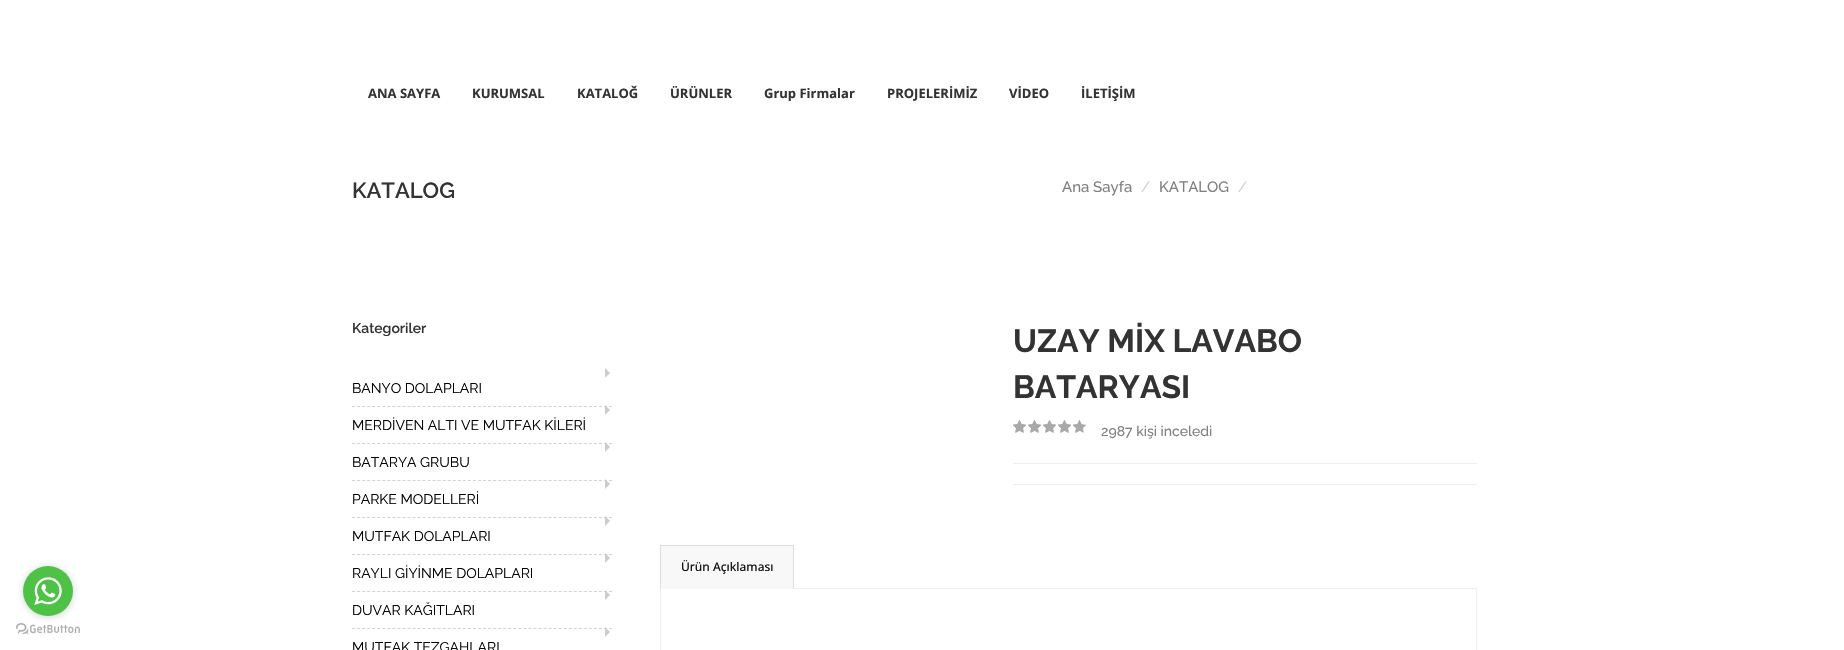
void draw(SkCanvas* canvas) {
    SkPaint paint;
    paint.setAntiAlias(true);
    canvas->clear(0xFFFFFFFF);
    canvas->drawImageRect(SkImages::DeferredFromEncodedData(SkData::MakeFromFileName("img2.png")), SkRect::MakeXYWH(16, 623, 64, 11), SkSamplingOptions());
    paint.setColor(0x66888888);
    paint.setMaskFilter(SkMaskFilter::MakeBlur(kNormal_SkBlurStyle, 3.5f));
    canvas->drawRoundRect(SkRect::MakeXYWH(23, 567, 50, 50), 25, 25, paint);
    paint.setMaskFilter(nullptr);
    paint.setColor(0xFF4DC247);
    canvas->drawCircle(48, 591, 25, paint);
    canvas->drawImageRect(SkImages::DeferredFromEncodedData(SkData::MakeFromFileName("img1.png")), SkRect::MakeXYWH(34, 577, 28, 28), SkSamplingOptions());
    SkFont font1(fontMgr->matchFamilyStyle("Open Sans", SkFontStyle::Bold()), 13);
    font1.setSubpixel(true);
    paint.setColor(0xFF333333);
    canvas->drawString("ANA SAYFA", 368, 98, font1, paint);
    canvas->drawString("KURUMSAL", 472, 98, font1, paint);
    canvas->drawString("KATALOĞ", 577, 98, font1, paint);
    canvas->drawString("ÜRÜNLER", 670, 98, font1, paint);
    canvas->drawString("Grup Firmalar", 764, 98, font1, paint);
    canvas->drawString("PROJELERİMİZ", 887, 98, font1, paint);
    canvas->drawString("VİDEO", 1009, 98, font1, paint);
    canvas->drawString("İLETİŞİM", 1081, 98, font1, paint);
    SkFont font2(fontMgr->matchFamilyStyle("Raleway", SkFontStyle(600, SkFontStyle::kNormal_Width, SkFontStyle::kUpright_Slant)), 22);
    font2.setSubpixel(true);
    canvas->drawString("KATALOG", 352, 198, font2, paint);
    SkFont font3(fontMgr->matchFamilyStyle("Raleway", SkFontStyle(500, SkFontStyle::kNormal_Width, SkFontStyle::kUpright_Slant)), 15);
    font3.setSubpixel(true);
    paint.setColor(0xFF808080);
    canvas->drawString("Ana Sayfa", 1062, 192, font3, paint);
    SkFont font4(fontMgr->matchFamilyStyle("Raleway", SkFontStyle::Normal()), 15);
    font4.setSubpixel(true);
    paint.setColor(0xFFCCCCCC);
    canvas->drawString("/", 1141, 192, font4, paint);
    paint.setColor(0xFF808080);
    canvas->drawString("KATALOG", 1159, 192, font3, paint);
    paint.setColor(0xFFCCCCCC);
    canvas->drawString("/", 1238, 192, font4, paint);
    SkFont font5(fontMgr->matchFamilyStyle("Raleway", SkFontStyle(600, SkFontStyle::kNormal_Width, SkFontStyle::kUpright_Slant)), 14);
    font5.setSubpixel(true);
    paint.setColor(0xFF333333);
    canvas->drawString("Kategoriler", 352, 333, font5, paint);
    paint.setStyle(SkPaint::kStroke_Style);
    paint.setStrokeWidth(1);
    paint.setColor(0xFFD3D3D3);
    paint.setPathEffect(SkDashPathEffect::Make({{3, 2.04f}}, 0));
    canvas->drawPath(SkPathBuilder().moveTo(352, 406.5f).lineTo(612, 406.5f).detach(), paint);
    paint.setPathEffect(nullptr);
    paint.setStyle(SkPaint::kFill_Style);
    paint.setColor(0xFFCCCCCC);
    canvas->drawPath(SkPathBuilder().moveTo(605, 378).lineTo(605, 368).lineTo(610, 373).close().detach(), paint);
    SkFont font6(fontMgr->matchFamilyStyle("Raleway", SkFontStyle::Normal()), 14);
    font6.setSubpixel(true);
    paint.setColor(0xFF000000);
    canvas->drawString("BANYO DOLAPLARI", 352, 393, font6, paint);
    paint.setStyle(SkPaint::kStroke_Style);
    paint.setColor(0xFFD3D3D3);
    paint.setPathEffect(SkDashPathEffect::Make({{3, 2.04f}}, 0));
    canvas->drawPath(SkPathBuilder().moveTo(352, 443.5f).lineTo(612, 443.5f).detach(), paint);
    paint.setPathEffect(nullptr);
    paint.setStyle(SkPaint::kFill_Style);
    paint.setColor(0xFFCCCCCC);
    canvas->drawPath(SkPathBuilder().moveTo(605, 415).lineTo(605, 405).lineTo(610, 410).close().detach(), paint);
    paint.setColor(0xFF000000);
    canvas->drawString("MERDİVEN ALTI VE MUTFAK KİLERİ", 352, 430, font6, paint);
    paint.setStyle(SkPaint::kStroke_Style);
    paint.setColor(0xFFD3D3D3);
    paint.setPathEffect(SkDashPathEffect::Make({{3, 2.04f}}, 0));
    canvas->drawPath(SkPathBuilder().moveTo(352, 480.5f).lineTo(612, 480.5f).detach(), paint);
    paint.setPathEffect(nullptr);
    paint.setStyle(SkPaint::kFill_Style);
    paint.setColor(0xFFCCCCCC);
    canvas->drawPath(SkPathBuilder().moveTo(605, 452).lineTo(605, 442).lineTo(610, 447).close().detach(), paint);
    paint.setColor(0xFF000000);
    canvas->drawString("BATARYA GRUBU", 352, 467, font6, paint);
    paint.setStyle(SkPaint::kStroke_Style);
    paint.setColor(0xFFD3D3D3);
    paint.setPathEffect(SkDashPathEffect::Make({{3, 2.04f}}, 0));
    canvas->drawPath(SkPathBuilder().moveTo(352, 517.5f).lineTo(612, 517.5f).detach(), paint);
    paint.setPathEffect(nullptr);
    paint.setStyle(SkPaint::kFill_Style);
    paint.setColor(0xFFCCCCCC);
    canvas->drawPath(SkPathBuilder().moveTo(605, 489).lineTo(605, 479).lineTo(610, 484).close().detach(), paint);
    paint.setColor(0xFF000000);
    canvas->drawString("PARKE MODELLERİ", 352, 504, font6, paint);
    paint.setStyle(SkPaint::kStroke_Style);
    paint.setColor(0xFFD3D3D3);
    paint.setPathEffect(SkDashPathEffect::Make({{3, 2.04f}}, 0));
    canvas->drawPath(SkPathBuilder().moveTo(352, 554.5f).lineTo(612, 554.5f).detach(), paint);
    paint.setPathEffect(nullptr);
    paint.setStyle(SkPaint::kFill_Style);
    paint.setColor(0xFFCCCCCC);
    canvas->drawPath(SkPathBuilder().moveTo(605, 526).lineTo(605, 516).lineTo(610, 521).close().detach(), paint);
    paint.setColor(0xFF000000);
    canvas->drawString("MUTFAK DOLAPLARI", 352, 541, font6, paint);
    paint.setStyle(SkPaint::kStroke_Style);
    paint.setColor(0xFFD3D3D3);
    paint.setPathEffect(SkDashPathEffect::Make({{3, 2.04f}}, 0));
    canvas->drawPath(SkPathBuilder().moveTo(352, 591.5f).lineTo(612, 591.5f).detach(), paint);
    paint.setPathEffect(nullptr);
    paint.setStyle(SkPaint::kFill_Style);
    paint.setColor(0xFFCCCCCC);
    canvas->drawPath(SkPathBuilder().moveTo(605, 563).lineTo(605, 553).lineTo(610, 558).close().detach(), paint);
    paint.setColor(0xFF000000);
    canvas->drawString("RAYLI GİYİNME DOLAPLARI", 352, 578, font6, paint);
    paint.setStyle(SkPaint::kStroke_Style);
    paint.setColor(0xFFD3D3D3);
    paint.setPathEffect(SkDashPathEffect::Make({{3, 2.04f}}, 0));
    canvas->drawPath(SkPathBuilder().moveTo(352, 628.5f).lineTo(612, 628.5f).detach(), paint);
    paint.setPathEffect(nullptr);
    paint.setStyle(SkPaint::kFill_Style);
    paint.setColor(0xFFCCCCCC);
    canvas->drawPath(SkPathBuilder().moveTo(605, 600).lineTo(605, 590).lineTo(610, 595).close().detach(), paint);
    paint.setColor(0xFF000000);
    canvas->drawString("DUVAR KAĞITLARI", 352, 615, font6, paint);
    paint.setColor(0xFFCCCCCC);
    canvas->drawPath(SkPathBuilder().moveTo(605, 637).lineTo(605, 627).lineTo(610, 632).close().detach(), paint);
    paint.setColor(0xFF000000);
    canvas->drawString("MUTFAK TEZGAHLARI", 352, 652, font6, paint);
    SkFont font7(fontMgr->matchFamilyStyle("Raleway", SkFontStyle::Bold()), 32);
    font7.setSubpixel(true);
    paint.setColor(0xFF333333);
    canvas->drawString("UZAY MİX LAVABO", 1013, 352, font7, paint);
    canvas->drawString("BATARYASI", 1013, 398, font7, paint);
    canvas->drawImageRect(SkImages::DeferredFromEncodedData(SkData::MakeFromFileName("img3.png")), SkRect::MakeXYWH(1013, 420, 73, 13), SkSamplingOptions());
    canvas->drawImageRect(SkImages::DeferredFromEncodedData(SkData::MakeFromFileName("img4.png")), SkRect::MakeXYWH(1013, 420, 67, 13), SkSamplingOptions());
    SkFont font8(fontMgr->matchFamilyStyle("Raleway", SkFontStyle(500, SkFontStyle::kNormal_Width, SkFontStyle::kUpright_Slant)), 14);
    font8.setSubpixel(true);
    paint.setColor(0xFF808080);
    canvas->drawString("2987 kişi inceledi", 1101, 436, font8, paint);
    paint.setColor(0xFFEEEEEE);
    canvas->drawRect(SkRect::MakeXYWH(1013, 463, 464, 1), paint);
    canvas->drawRect(SkRect::MakeXYWH(1013, 484, 464, 1), paint);
    paint.setStyle(SkPaint::kStroke_Style);
    canvas->drawRect(SkRect::MakeXYWH(660.5f, 588.5f, 816, 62), paint);
    paint.setStyle(SkPaint::kFill_Style);
    paint.setColor(0xFFF8F8F8);
    canvas->drawRect(SkRect::MakeXYWH(660, 546, 134, 43), paint);
    paint.setColor(0xFFDDDDDD);
    canvas->drawRect(SkRect::MakeXYWH(660, 545, 134, 1), paint);
    canvas->drawPath(SkPathBuilder().moveTo(794, 545).lineTo(794, 589).lineTo(793, 588).lineTo(793, 546).close().detach(), paint);
    canvas->drawPath(SkPathBuilder().moveTo(660, 589).lineTo(660, 545).lineTo(661, 546).lineTo(661, 588).close().detach(), paint);
    SkFont font9(fontMgr->matchFamilyStyle("Open Sans", SkFontStyle(500, SkFontStyle::kNormal_Width, SkFontStyle::kUpright_Slant)), 12);
    font9.setSubpixel(true);
    paint.setColor(0xFF111111);
    canvas->drawString("Ürün Açıklaması", 681, 571, font9, paint);
}
